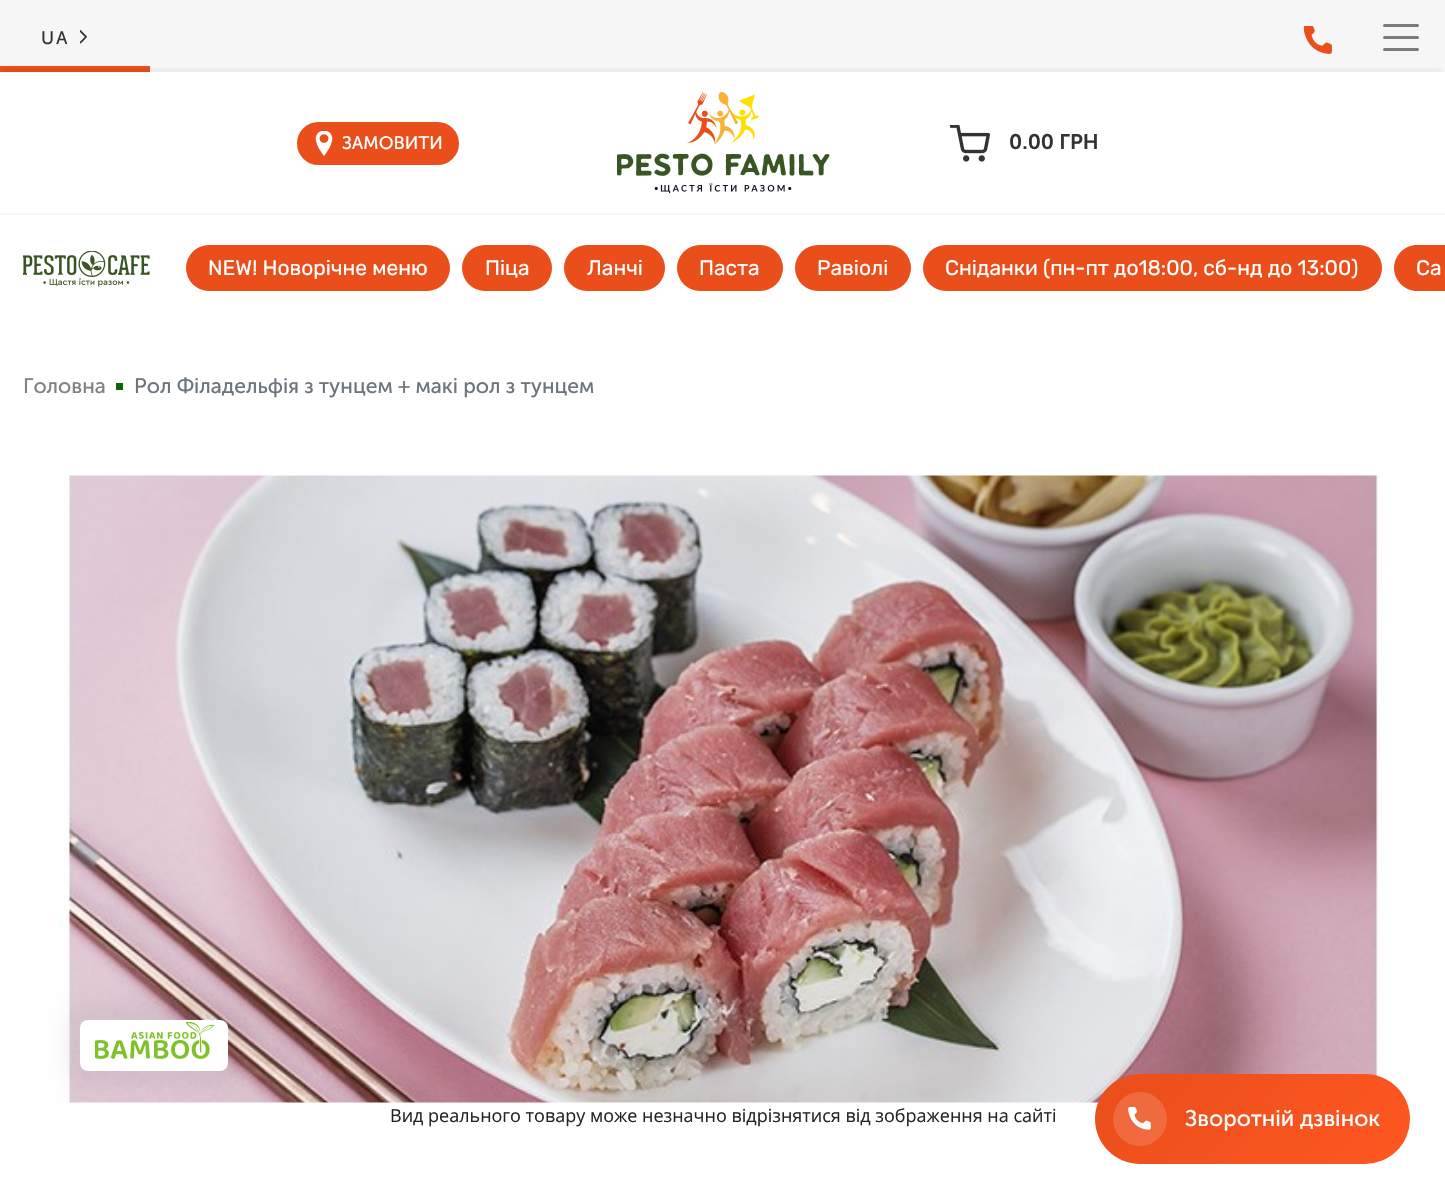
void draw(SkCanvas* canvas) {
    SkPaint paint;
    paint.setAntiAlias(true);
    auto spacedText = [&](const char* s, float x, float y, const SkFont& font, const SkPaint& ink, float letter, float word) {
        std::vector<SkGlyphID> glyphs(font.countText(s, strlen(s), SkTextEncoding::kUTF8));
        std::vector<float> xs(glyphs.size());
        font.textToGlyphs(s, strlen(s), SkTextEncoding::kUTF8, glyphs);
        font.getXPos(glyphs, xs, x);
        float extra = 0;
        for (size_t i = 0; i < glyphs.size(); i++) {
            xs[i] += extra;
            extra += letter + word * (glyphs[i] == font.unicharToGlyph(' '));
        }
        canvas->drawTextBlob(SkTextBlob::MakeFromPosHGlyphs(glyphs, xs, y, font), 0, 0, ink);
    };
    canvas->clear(0xFFFFFFFF);
    paint.setColor(0xFFF6F6F6);
    canvas->drawRect(SkRect::MakeXYWH(0, 0, 1445, 72), paint);
    SkFont font1(fontMgr->matchFamilyStyle("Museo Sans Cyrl", SkFontStyle::Normal()), 18);
    font1.setSubpixel(true);
    paint.setColor(0xFF333333);
    spacedText("UA", 41, 44, font1, paint, 2, 0);
    canvas->drawImageRect(SkImages::DeferredFromEncodedData(SkData::MakeFromFileName("img1.png")), SkRect::MakeXYWH(80, 30, 7, 14), SkSamplingOptions());
    paint.setColor(0xFFE94E1B);
    canvas->drawRect(SkRect::MakeXYWH(0, 66, 150, 6), paint);
    canvas->drawImageRect(SkImages::DeferredFromEncodedData(SkData::MakeFromFileName("img2.png")), SkRect::MakeXYWH(1304, 26, 28, 28), SkSamplingOptions());
    paint.setStyle(SkPaint::kStroke_Style);
    paint.setStrokeWidth(3);
    paint.setStrokeCap(SkPaint::kRound_Cap);
    paint.setColor(0xFF7B7B7B);
    canvas->drawPath(SkPathBuilder().moveTo(1384.5f, 25.5f).lineTo(1417.5f, 25.5f).moveTo(1384.5f, 37.5f).lineTo(1417.5f, 37.5f).moveTo(1384.5f, 49.5f).lineTo(1417.5f, 49.5f).detach(), paint);
    canvas->save();
    canvas->clipRect(SkRect::MakeXYWH(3, 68, 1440, 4));
    paint.setStyle(SkPaint::kFill_Style);
    paint.setColor(0x26000000);
    paint.setMaskFilter(SkMaskFilter::MakeBlur(kNormal_SkBlurStyle, 11));
    canvas->drawRect(SkRect::MakeXYWH(0, 80, 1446, 141), paint);
    paint.setMaskFilter(nullptr);
    canvas->restore();
    paint.setColor(0xFFE94E1B);
    canvas->drawRoundRect(SkRect::MakeXYWH(298, 123, 160, 41), 20.5f, 20.5f, paint);
    paint.setStyle(SkPaint::kStroke_Style);
    paint.setStrokeWidth(2);
    paint.setStrokeCap(SkPaint::kButt_Cap);
    canvas->drawRoundRect(SkRect::MakeXYWH(298, 123, 160, 41), 20.5f, 20.5f, paint);
    canvas->drawImageRect(SkImages::DeferredFromEncodedData(SkData::MakeFromFileName("img3.png")), SkRect::MakeXYWH(315, 131, 18, 25), SkSamplingOptions());
    paint.setStyle(SkPaint::kFill_Style);
    paint.setColor(0xFFFFFFFF);
    canvas->drawString("ЗАМОВИТИ", 342, 149, font1, paint);
    canvas->drawImageRect(SkImages::DeferredFromEncodedData(SkData::MakeFromFileName("img4.png")), SkRect::MakeXYWH(617, 92, 213, 102), SkSamplingOptions());
    canvas->drawImageRect(SkImages::DeferredFromEncodedData(SkData::MakeFromFileName("img5.png")), SkRect::MakeXYWH(950, 125, 40, 37), SkSamplingOptions());
    SkFont font2(fontMgr->matchFamilyStyle("Museo Sans Cyrl", SkFontStyle(600, SkFontStyle::kNormal_Width, SkFontStyle::kUpright_Slant)), 21);
    font2.setSubpixel(true);
    paint.setColor(0xFF333333);
    canvas->drawString("0.00 ГРН", 1009, 149, font2, paint);
    paint.setColor(0xFFFFFFFF);
    canvas->drawRect(SkRect::MakeXYWH(0, 215, 1445, 22), paint);
    paint.setColor(0xFFF6F6F6);
    canvas->drawRect(SkRect::MakeXYWH(0, 213, 1445, 2), paint);
    canvas->drawImageRect(SkImages::DeferredFromEncodedData(SkData::MakeFromFileName("img6.png")), SkRect::MakeXYWH(23, 251, 127, 36), SkSamplingOptions());
    paint.setColor(0xFFE94E1B);
    canvas->drawRoundRect(SkRect::MakeXYWH(186, 245, 264, 46), 23, 23, paint);
    SkFont font3(fontMgr->matchFamilyStyle("Rubik", SkFontStyle::Normal()), 21);
    font3.setSubpixel(true);
    paint.setColor(0xFFFFFFFF);
    canvas->drawString("NEW! Новорічне меню", 208, 275, font3, paint);
    paint.setColor(0xFFE94E1B);
    canvas->drawRoundRect(SkRect::MakeXYWH(462, 245, 90, 46), 23, 23, paint);
    paint.setColor(0xFFFFFFFF);
    canvas->drawString("Піца", 485, 275, font3, paint);
    paint.setColor(0xFFE94E1B);
    canvas->drawRoundRect(SkRect::MakeXYWH(564, 245, 101, 46), 23, 23, paint);
    paint.setColor(0xFFFFFFFF);
    canvas->drawString("Ланчі", 587, 275, font3, paint);
    paint.setColor(0xFFE94E1B);
    canvas->drawRoundRect(SkRect::MakeXYWH(677, 245, 106, 46), 23, 23, paint);
    paint.setColor(0xFFFFFFFF);
    canvas->drawString("Паста", 699, 275, font3, paint);
    paint.setColor(0xFFE94E1B);
    canvas->drawRoundRect(SkRect::MakeXYWH(795, 245, 116, 46), 23, 23, paint);
    paint.setColor(0xFFFFFFFF);
    canvas->drawString("Равіолі", 817, 275, font3, paint);
    paint.setColor(0xFFE94E1B);
    canvas->drawRoundRect(SkRect::MakeXYWH(923, 245, 459, 46), 23, 23, paint);
    paint.setColor(0xFFFFFFFF);
    canvas->drawString("Сніданки (пн-пт до18:00, сб-нд до 13:00)", 945, 275, font3, paint);
    paint.setColor(0xFFE94E1B);
    canvas->drawPath(SkPathBuilder().moveTo(1417, 245).lineTo(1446, 245).lineTo(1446, 291).lineTo(1417, 291).cubicTo(1404.5f, 291, 1394, 280.5f, 1394, 268).cubicTo(1394, 255.5f, 1404.5f, 245, 1417, 245).close().detach(), paint);
    paint.setColor(0xFFFFFFFF);
    canvas->drawString("Са", 1416, 275, font3, paint);
    SkFont font4(fontMgr->matchFamilyStyle("Museo Sans Cyrl", SkFontStyle::Normal()), 21);
    font4.setSubpixel(true);
    paint.setColor(0xFF828282);
    canvas->drawString("Головна", 23, 393, font4, paint);
    paint.setColor(0xFF0D6406);
    canvas->drawRect(SkRect::MakeXYWH(116, 383, 7, 7), paint);
    paint.setColor(0xFF6C757D);
    canvas->drawString("Рол Філадельфія з тунцем + макі рол з тунцем", 134, 393, font4, paint);
    canvas->drawImageRect(SkImages::DeferredFromEncodedData(SkData::MakeFromFileName("img7.png")), SkRect::MakeXYWH(58, 475, 1327, 628), SkSamplingOptions());
    paint.setColor(0x0D000000);
    paint.setMaskFilter(SkMaskFilter::MakeBlur(kNormal_SkBlurStyle, 11));
    canvas->drawRoundRect(SkRect::MakeXYWH(65, 1005, 178, 81), 23, 23, paint);
    paint.setMaskFilter(nullptr);
    paint.setColor(0xFFFFFFFF);
    canvas->drawRoundRect(SkRect::MakeXYWH(80, 1020, 148, 51), 8, 8, paint);
    canvas->drawImageRect(SkImages::DeferredFromEncodedData(SkData::MakeFromFileName("img8.png")), SkRect::MakeXYWH(95, 1022, 120, 37), SkSamplingOptions());
    SkFont font5(fontMgr->matchFamilyStyle("Open Sans", SkFontStyle::Normal()), 18);
    font5.setSubpixel(true);
    paint.setColor(0xFF212529);
    canvas->drawString("Вид реального товару може незначно відрізнятися від зображення на сайті", 390, 1122, font5, paint);
    {
        const SkColor colors[] = {0xFFE94E1B, 0xFFFF5722};
        const float stops[] = {0, 1};
        const SkPoint ends[] = {{1151, 1018}, {1354, 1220}};
        paint.setShader(SkGradientShader::MakeLinear(ends, colors, stops, 2, SkTileMode::kClamp));
        paint.setAlpha(255);
    }
    canvas->drawRoundRect(SkRect::MakeXYWH(1095, 1074, 315, 90), 45, 45, paint);
    paint.setShader(nullptr);
    paint.setColor(0x26FFFFFF);
    canvas->drawCircle(1140, 1119, 27, paint);
    canvas->drawImageRect(SkImages::DeferredFromEncodedData(SkData::MakeFromFileName("img9.png")), SkRect::MakeXYWH(1128, 1107, 23, 23), SkSamplingOptions());
    SkFont font6(fontMgr->matchFamilyStyle("Museo Sans Cyrl", SkFontStyle::Normal()), 22.5f);
    font6.setSubpixel(true);
    paint.setColor(0xFFFFFFFF);
    canvas->drawString("Зворотній дзвінок", 1185, 1126, font6, paint);
}
